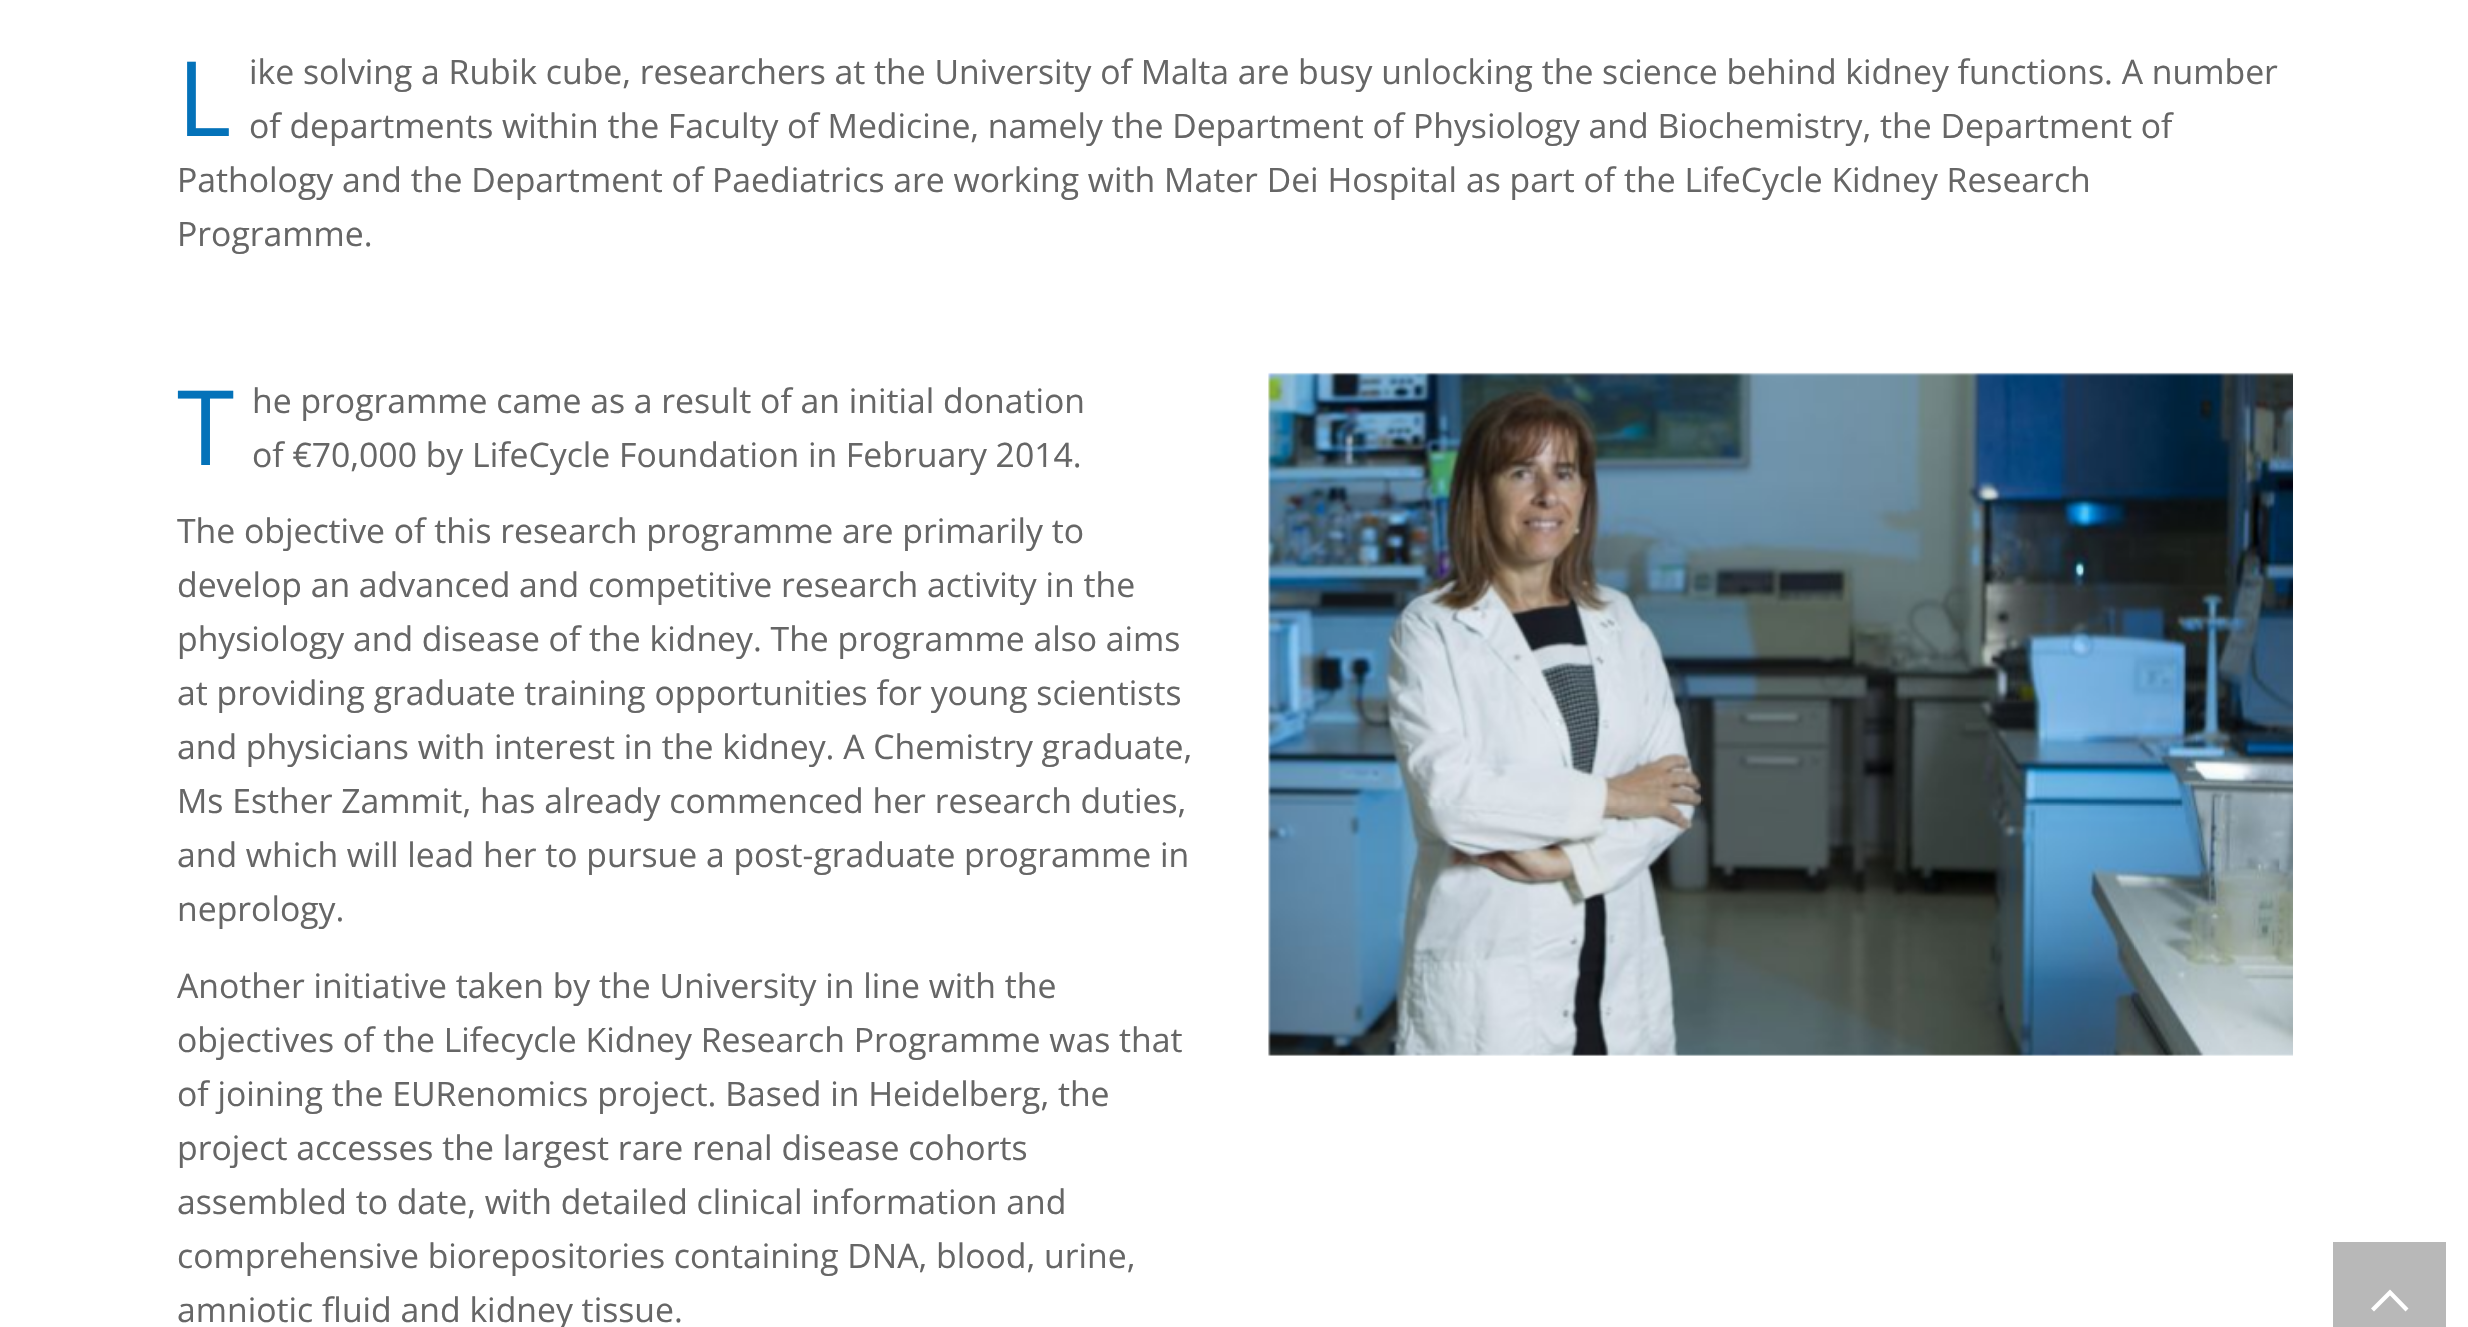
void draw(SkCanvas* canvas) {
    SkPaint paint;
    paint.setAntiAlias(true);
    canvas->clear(0xFFFFFFFF);
    SkFont font1(fontMgr->matchFamilyStyle("Open Sans", SkFontStyle::Normal()), 104);
    font1.setSubpixel(true);
    paint.setColor(0xFF0472B9);
    canvas->drawString("L", 177, 136, font1, paint);
    SkFont font2(fontMgr->matchFamilyStyle("Open Sans", SkFontStyle::Normal()), 33.75f);
    font2.setSubpixel(true);
    paint.setColor(0xFF666666);
    canvas->drawString("ike solving a Rubik cube, researchers at the University of Malta are busy unlocking the science behind kidney functions. A number", 249, 84, font2, paint);
    canvas->drawString("of departments within the Faculty of Medicine, namely the Department of Physiology and Biochemistry, the Department of", 249, 138, font2, paint);
    canvas->drawString("Pathology and the Department of Paediatrics are working with Mater Dei Hospital as part of the LifeCycle Kidney Research", 177, 192, font2, paint);
    canvas->drawString("Programme.", 177, 246, font2, paint);
    paint.setColor(0xFF0472B9);
    canvas->drawString("T", 177, 465, font1, paint);
    paint.setColor(0xFF666666);
    canvas->drawString("he programme came as a result of an initial donation", 252, 413, font2, paint);
    canvas->drawString("of €70,000 by LifeCycle Foundation in February 2014.", 252, 467, font2, paint);
    canvas->drawString("The objective of this research programme are primarily to", 177, 543, font2, paint);
    canvas->drawString("develop an advanced and competitive research activity in the", 177, 597, font2, paint);
    canvas->drawString("physiology and disease of the kidney. The programme also aims", 177, 651, font2, paint);
    canvas->drawString("at providing graduate training opportunities for young scientists", 177, 705, font2, paint);
    canvas->drawString("and physicians with interest in the kidney. A Chemistry graduate,", 177, 759, font2, paint);
    canvas->drawString("Ms Esther Zammit, has already commenced her research duties,", 177, 813, font2, paint);
    canvas->drawString("and which will lead her to pursue a post-graduate programme in", 177, 867, font2, paint);
    canvas->drawString("neprology.", 177, 921, font2, paint);
    canvas->drawString("Another initiative taken by the University in line with the", 177, 998, font2, paint);
    canvas->drawString("objectives of the Lifecycle Kidney Research Programme was that", 177, 1052, font2, paint);
    canvas->drawString("of joining the EURenomics project. Based in Heidelberg, the", 177, 1106, font2, paint);
    canvas->drawString("project accesses the largest rare renal disease cohorts", 177, 1160, font2, paint);
    canvas->drawString("assembled to date, with detailed clinical information and", 177, 1214, font2, paint);
    canvas->drawString("comprehensive biorepositories containing DNA, blood, urine,", 177, 1268, font2, paint);
    canvas->drawString("amniotic fluid and kidney tissue.", 177, 1322, font2, paint);
    canvas->drawImageRect(SkImages::DeferredFromEncodedData(SkData::MakeFromFileName("img1.png")), SkRect::MakeXYWH(1268, 372, 1025, 684), SkSamplingOptions());
    paint.setColor(0xFFB8B8B8);
    canvas->drawRect(SkRect::MakeXYWH(2333, 1242, 113, 85), paint);
    paint.setColor(0xFFFFFFFF);
    canvas->drawPath(SkPathBuilder().moveTo(2405.5f, 1311.5f).lineTo(2390, 1295.5f).lineTo(2374, 1311.5f).lineTo(2371, 1308.5f).lineTo(2390, 1289.5f).lineTo(2408.5f, 1308.5f).close().detach(), paint);
}
